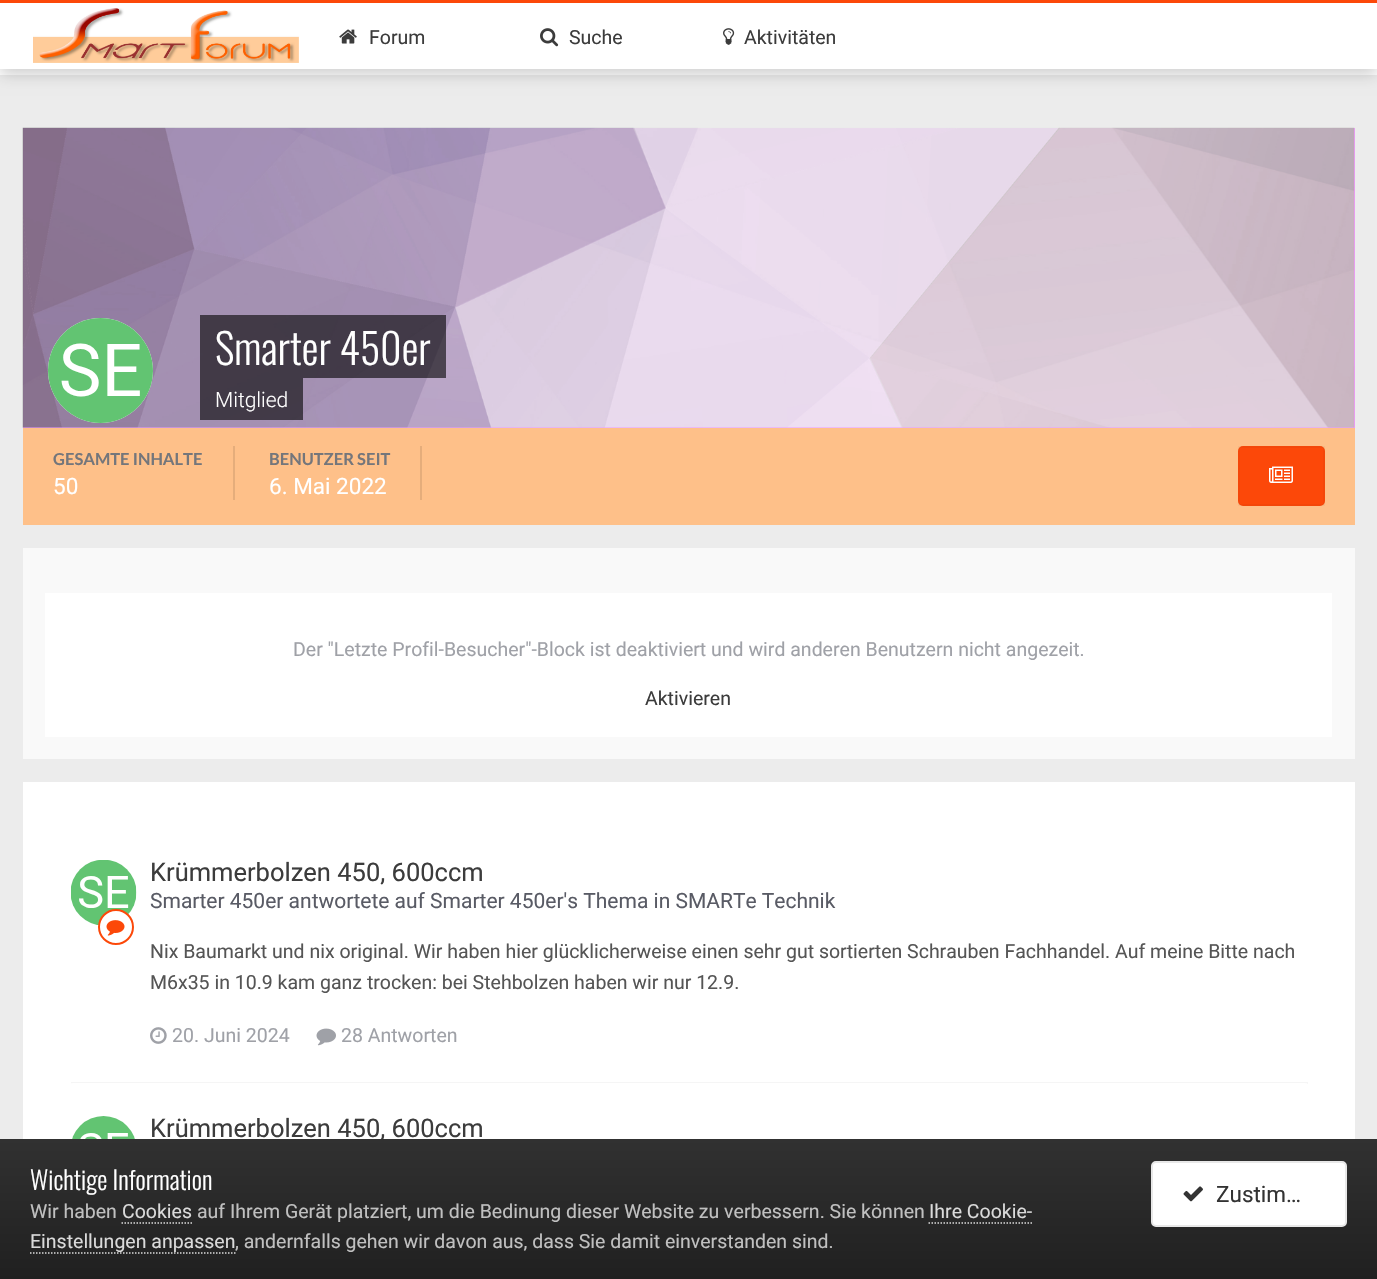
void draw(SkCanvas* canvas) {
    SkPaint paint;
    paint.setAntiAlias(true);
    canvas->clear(0xFFECECEC);
    paint.setColor(0xFFFFFFFF);
    canvas->drawRect(SkRect::MakeXYWH(0, 69, 1377, 6), paint);
    paint.setColor(0x33000000);
    paint.setMaskFilter(SkMaskFilter::MakeBlur(kNormal_SkBlurStyle, 7.5f));
    canvas->drawRect(SkRect::MakeXYWH(0, 5, 1377, 69), paint);
    paint.setMaskFilter(nullptr);
    paint.setColor(0xFFFFFFFF);
    canvas->drawRect(SkRect::MakeXYWH(0, 3, 1377, 66), paint);
    paint.setColor(0xFFFC4809);
    canvas->drawRect(SkRect::MakeXYWH(0, 0, 1377, 3), paint);
    canvas->drawImageRect(SkImages::DeferredFromEncodedData(SkData::MakeFromFileName("img1.png")), SkRect::MakeXYWH(33, 8, 266, 55), SkSamplingOptions());
    canvas->drawImageRect(SkImages::DeferredFromEncodedData(SkData::MakeFromFileName("img2.png")), SkRect::MakeXYWH(339, 29, 18, 15), SkSamplingOptions());
    SkFont font1(fontMgr->matchFamilyStyle("Roboto", SkFontStyle::Normal()), 19.5f);
    font1.setSubpixel(true);
    paint.setColor(0xFF3C3C3C);
    canvas->drawString("Forum", 369, 44, font1, paint);
    canvas->drawImageRect(SkImages::DeferredFromEncodedData(SkData::MakeFromFileName("img3.png")), SkRect::MakeXYWH(540, 28, 19, 19), SkSamplingOptions());
    canvas->drawString("Suche", 569, 44, font1, paint);
    canvas->drawImageRect(SkImages::DeferredFromEncodedData(SkData::MakeFromFileName("img4.png")), SkRect::MakeXYWH(723, 28, 12, 17), SkSamplingOptions());
    canvas->drawString("Aktivitäten", 744, 44, font1, paint);
    paint.setColor(0xFFEE99FF);
    canvas->drawRect(SkRect::MakeXYWH(23, 128, 1332, 300), paint);
    canvas->drawImageRect(SkImages::DeferredFromEncodedData(SkData::MakeFromFileName("img5.png")), SkRect::MakeXYWH(22, 127, 1333, 301), SkSamplingOptions());
    paint.setColor(0xFFFFFFFF);
    canvas->drawCircle(100.5f, 370.5f, 52.5f, paint);
    canvas->drawImageRect(SkImages::DeferredFromEncodedData(SkData::MakeFromFileName("img6.png")), SkRect::MakeXYWH(48, 318, 105, 105), SkSamplingOptions());
    paint.setColor(0x99000000);
    canvas->drawRect(SkRect::MakeXYWH(200, 315, 246, 63), paint);
    SkFont font2(fontMgr->matchFamilyStyle("Oswald", SkFontStyle(300, SkFontStyle::kNormal_Width, SkFontStyle::kUpright_Slant)), 42);
    font2.setSubpixel(true);
    paint.setColor(0xFFFFFFFF);
    canvas->drawString("Smarter 450er", 215, 365, font2, paint);
    paint.setColor(0x99000000);
    canvas->drawRect(SkRect::MakeXYWH(200, 378, 103, 42), paint);
    SkFont font3(fontMgr->matchFamilyStyle("Roboto", SkFontStyle(300, SkFontStyle::kNormal_Width, SkFontStyle::kUpright_Slant)), 21);
    font3.setSubpixel(true);
    paint.setColor(0xFFFFFFFF);
    canvas->drawString("Mitglied", 215, 407, font3, paint);
    paint.setColor(0xFFFEC089);
    canvas->drawRect(SkRect::MakeXYWH(23, 428, 1332, 97), paint);
    paint.setColor(0xFFE5AD7B);
    canvas->drawRect(SkRect::MakeXYWH(233, 446, 2, 54), paint);
    SkFont font4(fontMgr->matchFamilyStyle("Lato", SkFontStyle::Bold()), 16.5f);
    font4.setSubpixel(true);
    paint.setColor(0xFF74767B);
    canvas->drawString("GESAMTE INHALTE", 53, 465, font4, paint);
    SkFont font5(fontMgr->matchFamilyStyle("Roboto", SkFontStyle::Normal()), 22.5f);
    font5.setSubpixel(true);
    paint.setColor(0xFFFFFFFF);
    canvas->drawString("50", 53, 494, font5, paint);
    paint.setColor(0xFFE5AD7B);
    canvas->drawRect(SkRect::MakeXYWH(420, 446, 2, 54), paint);
    paint.setColor(0xFF74767B);
    canvas->drawString("BENUTZER SEIT", 269, 465, font4, paint);
    paint.setColor(0xFFFFFFFF);
    canvas->drawString("6. Mai 2022", 269, 494, font5, paint);
    paint.setColor(0xFFFC4809);
    canvas->drawRoundRect(SkRect::MakeXYWH(1238, 446, 87, 60), 5, 5, paint);
    paint.setStyle(SkPaint::kStroke_Style);
    paint.setStrokeWidth(2);
    paint.setColor(0x08000000);
    canvas->drawRect(SkRect::MakeXYWH(1239, 447, 85, 58), paint);
    canvas->drawImageRect(SkImages::DeferredFromEncodedData(SkData::MakeFromFileName("img7.png")), SkRect::MakeXYWH(1269, 466, 24, 17), SkSamplingOptions());
    paint.setStyle(SkPaint::kFill_Style);
    paint.setColor(0xFFF9F9F9);
    canvas->drawRect(SkRect::MakeXYWH(23, 548, 1332, 211), paint);
    paint.setColor(0xFFFFFFFF);
    canvas->drawRect(SkRect::MakeXYWH(45, 593, 1287, 144), paint);
    paint.setColor(0xFF9FA1A7);
    canvas->drawString("Der \"Letzte Profil-Besucher\"-Block ist deaktiviert und wird anderen Benutzern nicht angezeit.", 293, 656, font1, paint);
    paint.setColor(0xFF3C3C3C);
    canvas->drawString("Aktivieren", 645, 705, font1, paint);
    paint.setColor(0xFFFFFFFF);
    canvas->drawRect(SkRect::MakeXYWH(23, 782, 1332, 357), paint);
    paint.setColor(0xFFF5F5F5);
    canvas->drawRect(SkRect::MakeXYWH(71, 1082, 1237, 2), paint);
    canvas->drawImageRect(SkImages::DeferredFromEncodedData(SkData::MakeFromFileName("img8.png")), SkRect::MakeXYWH(71, 860, 66, 66), SkSamplingOptions());
    SkFont font6(fontMgr->matchFamilyStyle("Roboto", SkFontStyle::Normal()), 25.5f);
    font6.setSubpixel(true);
    paint.setColor(0xFF3C3C3C);
    canvas->drawString("Krümmerbolzen 450, 600ccm", 150, 881, font6, paint);
    SkFont font7(fontMgr->matchFamilyStyle("Roboto", SkFontStyle::Normal()), 21);
    font7.setSubpixel(true);
    paint.setColor(0xFF595B65);
    canvas->drawString("Smarter 450er antwortete auf Smarter 450er's Thema in SMARTe Technik", 150, 908, font7, paint);
    paint.setColor(0xFFFFFFFF);
    canvas->drawCircle(116, 927, 17, paint);
    paint.setStyle(SkPaint::kStroke_Style);
    paint.setColor(0xFFFC4809);
    canvas->drawCircle(116, 927, 17, paint);
    canvas->drawImageRect(SkImages::DeferredFromEncodedData(SkData::MakeFromFileName("img9.png")), SkRect::MakeXYWH(106, 920, 19, 16), SkSamplingOptions());
    paint.setStyle(SkPaint::kFill_Style);
    paint.setColor(0xFF555555);
    canvas->drawString("Nix Baumarkt und nix original. Wir haben hier glücklicherweise einen sehr gut sortierten Schrauben Fachhandel. Auf meine Bitte nach", 150, 958, font1, paint);
    canvas->drawString("M6x35 in 10.9 kam ganz trocken: bei Stehbolzen haben wir nur 12.9.", 150, 989, font1, paint);
    canvas->drawImageRect(SkImages::DeferredFromEncodedData(SkData::MakeFromFileName("img10.png")), SkRect::MakeXYWH(150, 1027, 17, 17), SkSamplingOptions());
    paint.setColor(0xFF9FA1A7);
    canvas->drawString("20. Juni 2024", 172, 1042, font1, paint);
    canvas->drawImageRect(SkImages::DeferredFromEncodedData(SkData::MakeFromFileName("img11.png")), SkRect::MakeXYWH(316, 1028, 20, 18), SkSamplingOptions());
    canvas->drawString("28 Antworten", 341, 1042, font1, paint);
    paint.setColor(0xFFFFFFFF);
    canvas->drawRoundRect(SkRect::MakeXYWH(68, 1083, 1242, 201), 5, 5, paint);
    canvas->drawImageRect(SkImages::DeferredFromEncodedData(SkData::MakeFromFileName("img12.png")), SkRect::MakeXYWH(72, 1116, 63, 23), SkSamplingOptions());
    paint.setColor(0xFF3C3C3C);
    canvas->drawString("Krümmerbolzen 450, 600ccm", 150, 1137, font6, paint);
    {
        const SkColor colors[] = {0xFF313131, 0xFF202020};
        const float stops[] = {0, 1};
        const SkPoint ends[] = {{689, 1139}, {689, 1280}};
        paint.setShader(SkGradientShader::MakeLinear(ends, colors, stops, 2, SkTileMode::kClamp));
        paint.setAlpha(255);
    }
    canvas->drawRect(SkRect::MakeXYWH(0, 1139, 1377, 140), paint);
    SkFont font8(fontMgr->matchFamilyStyle("Oswald", SkFontStyle(300, SkFontStyle::kNormal_Width, SkFontStyle::kUpright_Slant)), 25.5f);
    font8.setSubpixel(true);
    paint.setShader(nullptr);
    paint.setColor(0xFFFFFFFF);
    canvas->drawString("Wichtige Information", 30, 1190, font8, paint);
    paint.setColor(0xFFC0C0C0);
    canvas->drawString("Wir haben", 30, 1218, font1, paint);
    paint.setColor(0xFFDADADA);
    canvas->drawString("Cookies", 122, 1218, font1, paint);
    paint.setStyle(SkPaint::kStroke_Style);
    paint.setStrokeWidth(1.5f);
    paint.setPathEffect(SkDashPathEffect::Make({{1.5f, 1.5f}}, 0));
    canvas->drawPath(SkPathBuilder().moveTo(121.5f, 1223).lineTo(192, 1223).detach(), paint);
    paint.setPathEffect(nullptr);
    paint.setStyle(SkPaint::kFill_Style);
    paint.setColor(0xFFC0C0C0);
    canvas->drawString("auf Ihrem Gerät platziert, um die Bedinung dieser Website zu verbessern. Sie können", 197, 1218, font1, paint);
    paint.setColor(0xFFDADADA);
    canvas->drawString("Ihre Cookie-", 929, 1218, font1, paint);
    paint.setStyle(SkPaint::kStroke_Style);
    paint.setPathEffect(SkDashPathEffect::Make({{1.5f, 1.5f}}, 0));
    canvas->drawPath(SkPathBuilder().moveTo(928.5f, 1223).lineTo(1032, 1223).detach(), paint);
    paint.setPathEffect(nullptr);
    paint.setPathEffect(SkDashPathEffect::Make({{1.5f, 1.5f}}, 0));
    canvas->drawPath(SkPathBuilder().moveTo(30, 1253).lineTo(235.5f, 1253).detach(), paint);
    paint.setPathEffect(nullptr);
    paint.setStyle(SkPaint::kFill_Style);
    canvas->drawString("Einstellungen anpassen", 30, 1248, font1, paint);
    paint.setColor(0xFFC0C0C0);
    canvas->drawString(", andernfalls gehen wir davon aus, dass Sie damit einverstanden sind.", 235, 1248, font1, paint);
    paint.setColor(0xFFFFFFFF);
    canvas->drawRoundRect(SkRect::MakeXYWH(1152, 1162, 194, 64), 4, 4, paint);
    paint.setStyle(SkPaint::kStroke_Style);
    paint.setStrokeWidth(2);
    paint.setColor(0xFFE8E8E8);
    canvas->drawRoundRect(SkRect::MakeXYWH(1152, 1162, 194, 64), 4, 4, paint);
    canvas->drawImageRect(SkImages::DeferredFromEncodedData(SkData::MakeFromFileName("img13.png")), SkRect::MakeXYWH(1183, 1186, 20, 16), SkSamplingOptions());
    paint.setStyle(SkPaint::kFill_Style);
    paint.setColor(0xFF333333);
    canvas->drawString("Zustim…", 1216, 1202, font5, paint);
}
